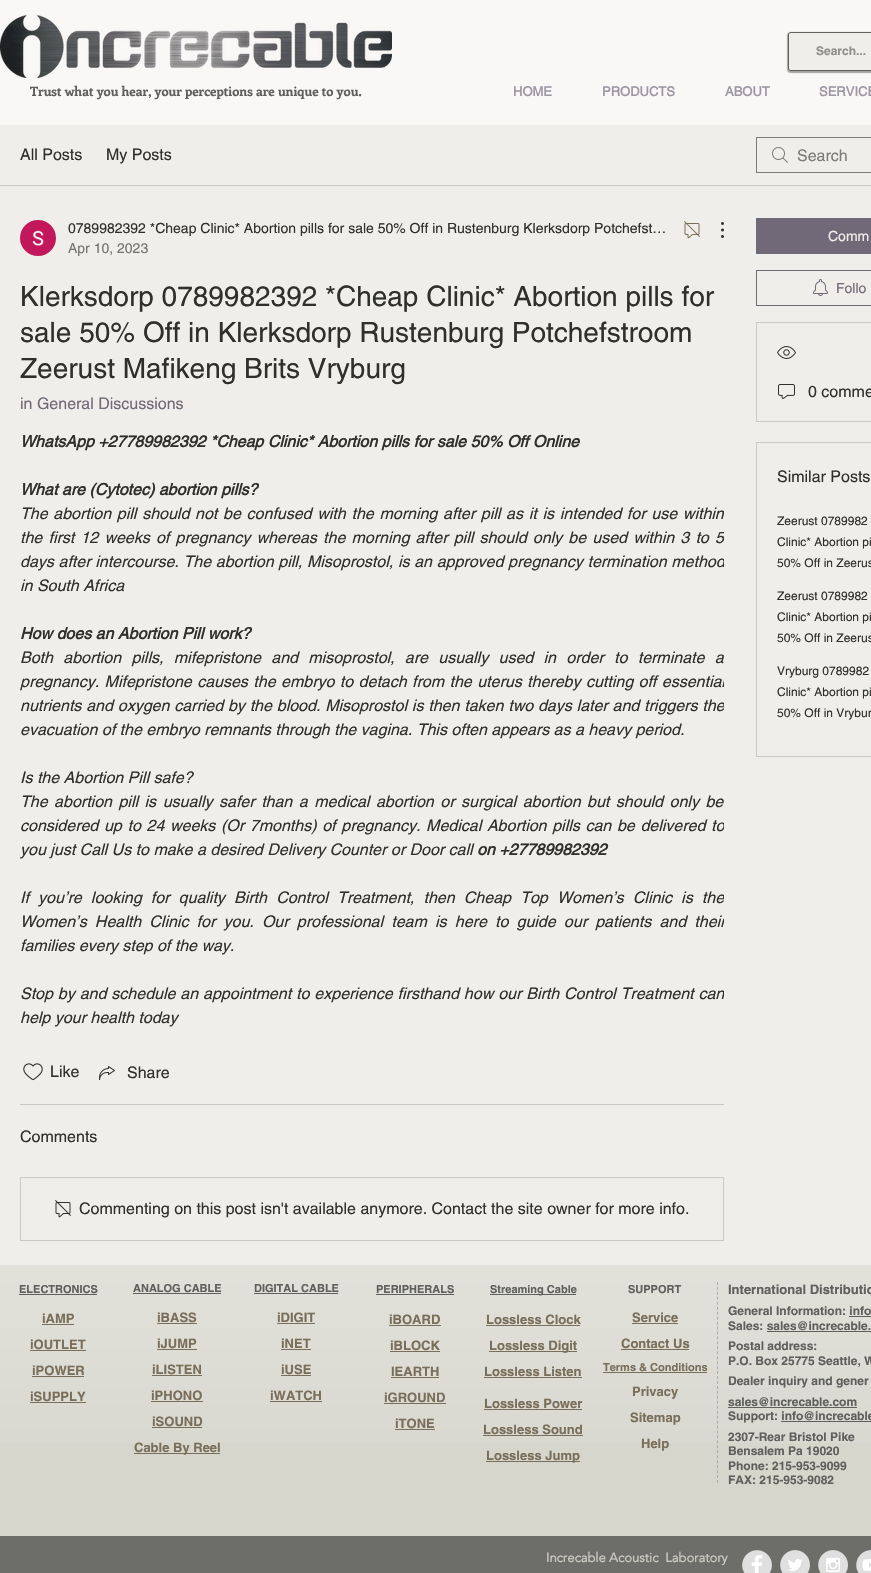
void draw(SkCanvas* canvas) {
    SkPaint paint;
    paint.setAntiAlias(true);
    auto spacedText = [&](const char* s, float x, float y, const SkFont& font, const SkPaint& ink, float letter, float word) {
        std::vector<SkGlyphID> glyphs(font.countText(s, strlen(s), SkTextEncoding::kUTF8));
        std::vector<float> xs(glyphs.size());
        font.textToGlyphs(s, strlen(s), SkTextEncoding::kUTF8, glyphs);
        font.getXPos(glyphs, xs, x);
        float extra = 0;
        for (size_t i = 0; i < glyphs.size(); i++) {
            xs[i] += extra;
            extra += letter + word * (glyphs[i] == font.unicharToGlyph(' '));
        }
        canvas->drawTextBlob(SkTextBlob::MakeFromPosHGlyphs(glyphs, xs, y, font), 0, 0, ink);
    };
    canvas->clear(0xFFF9F8F7);
    canvas->drawImageRect(SkImages::DeferredFromEncodedData(SkData::MakeFromFileName("img1.png")), SkRect::MakeXYWH(0, 14, 392, 64), SkSamplingOptions());
    paint.setColor(0x54000000);
    paint.setMaskFilter(SkMaskFilter::MakeBlur(kNormal_SkBlurStyle, 0.5f));
    canvas->drawRoundRect(SkRect::MakeXYWH(787, 32, 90, 41), 4, 4, paint);
    paint.setMaskFilter(nullptr);
    paint.setStyle(SkPaint::kStroke_Style);
    paint.setStrokeWidth(1);
    paint.setColor(0x992F2F2E);
    canvas->drawRoundRect(SkRect::MakeXYWH(788.5f, 32.5f, 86, 38), 2.5f, 2.5f, paint);
    paint.setStyle(SkPaint::kFill_Style);
    paint.setColor(0xFFEFEEEA);
    canvas->drawRoundRect(SkRect::MakeXYWH(789, 33, 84, 37), 2, 2, paint);
    SkFont font1(fontMgr->matchFamilyStyle("helvetica", SkFontStyle::Bold()), 12);
    font1.setSubpixel(true);
    paint.setColor(0xFF8F8E8C);
    canvas->drawString("Search...", 816, 55, font1, paint);
    SkFont font2(fontMgr->matchFamilyStyle("Enriqueta", SkFontStyle::Bold()), 13);
    font2.setSubpixel(true);
    paint.setColor(0xFF5F5F5D);
    canvas->drawString("Trust what you hear, your perceptions are unique to you.", 30, 96, font2, paint);
    SkFont font3(fontMgr->matchFamilyStyle("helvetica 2", SkFontStyle::Bold()), 13);
    font3.setSubpixel(true);
    paint.setColor(0xFF9E97A4);
    canvas->drawString("HOME", 513, 96, font3, paint);
    canvas->drawString("PRODUCTS", 602, 96, font3, paint);
    canvas->drawString("ABOUT", 725, 96, font3, paint);
    canvas->drawString("SERVICE", 819, 96, font3, paint);
    paint.setColor(0xFFEFEEEA);
    canvas->drawRect(SkRect::MakeXYWH(0, 125, 871, 1140), paint);
    paint.setColor(0xFFC9C8C4);
    canvas->drawRect(SkRect::MakeXYWH(0, 185, 871, 1), paint);
    SkFont font4(fontMgr->matchFamilyStyle("helvetica", SkFontStyle::Normal()), 16);
    font4.setSubpixel(true);
    paint.setColor(0xFF2F2F2E);
    canvas->drawString("All Posts", 20, 160, font4, paint);
    canvas->drawString("My Posts", 106, 160, font4, paint);
    canvas->drawImageRect(SkImages::DeferredFromEncodedData(SkData::MakeFromFileName("img2.png")), SkRect::MakeXYWH(772, 147, 16, 16), SkSamplingOptions());
    paint.setStyle(SkPaint::kStroke_Style);
    paint.setColor(0xFF7C7B79);
    canvas->drawRect(SkRect::MakeXYWH(756.5f, 137.5f, 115, 35), paint);
    paint.setStyle(SkPaint::kFill_Style);
    canvas->drawString("Search", 797, 161, font4, paint);
    canvas->drawImageRect(SkImages::DeferredFromEncodedData(SkData::MakeFromFileName("img3.png")), SkRect::MakeXYWH(20, 220, 36, 36), SkSamplingOptions());
    SkFont font5(fontMgr->matchFamilyStyle("helvetica", SkFontStyle::Normal()), 14);
    font5.setSubpixel(true);
    paint.setColor(0xFF2F2F2E);
    canvas->drawString("0789982392 *Cheap Clinic* Abortion pills for sale 50% Off in Rustenburg Klerksdorp Potchefst…", 68, 233, font5, paint);
    paint.setColor(0xFF747472);
    canvas->drawString("Apr 10, 2023", 68, 253, font5, paint);
    canvas->drawImageRect(SkImages::DeferredFromEncodedData(SkData::MakeFromFileName("img4.png")), SkRect::MakeXYWH(684, 221, 16, 18), SkSamplingOptions());
    canvas->drawImageRect(SkImages::DeferredFromEncodedData(SkData::MakeFromFileName("img5.png")), SkRect::MakeXYWH(721, 222, 3, 16), SkSamplingOptions());
    SkFont font6(fontMgr->matchFamilyStyle("helvetica", SkFontStyle::Normal()), 28);
    font6.setSubpixel(true);
    paint.setColor(0xFF2F2F2E);
    canvas->drawString("Klerksdorp 0789982392 *Cheap Clinic* Abortion pills for", 20, 306, font6, paint);
    canvas->drawString("sale 50% Off in Klerksdorp Rustenburg Potchefstroom", 20, 342, font6, paint);
    canvas->drawString("Zeerust Mafikeng Brits Vryburg", 20, 378, font6, paint);
    paint.setColor(0xFF716977);
    canvas->drawString("in General Discussions", 20, 409, font4, paint);
    SkFont font7(fontMgr->matchFamilyStyle("helvetica", SkFontStyle::BoldItalic()), 16);
    font7.setSubpixel(true);
    paint.setColor(0xFF2F2F2E);
    canvas->drawString("WhatsApp +27789982392 *Cheap Clinic* Abortion pills for sale 50% Off Online", 20, 447, font7, paint);
    canvas->drawString("What are (Cytotec) abortion pills?", 20, 495, font7, paint);
    canvas->save();
    canvas->clipRect(SkRect::MakeXYWH(20, 430, 704, 600));
    SkFont font8(fontMgr->matchFamilyStyle("helvetica", SkFontStyle::Italic()), 16);
    font8.setSubpixel(true);
    spacedText("The abortion pill should not be confused with the morning after pill as it is intended for use within", 20, 519, font8, paint, 0, 1.3f);
    spacedText("the first 12 weeks of pregnancy whereas the morning after pill should only be used within 3 to 5", 20, 543, font8, paint, 0, 1.75f);
    spacedText("days after intercourse. The abortion pill, Misoprostol, is an approved pregnancy termination method", 20, 567, font8, paint, 0, 0.25f);
    canvas->restore();
    canvas->drawString("in South Africa", 20, 591, font8, paint);
    canvas->drawString("How does an Abortion Pill work?", 20, 639, font7, paint);
    spacedText("Both abortion pills, mifepristone and misoprostol, are usually used in order to terminate a", 20, 663, font8, paint, 0, 5.9f);
    canvas->save();
    canvas->clipRect(SkRect::MakeXYWH(20, 430, 704, 600));
    spacedText("pregnancy. Mifepristone causes the embryo to detach from the uterus thereby cutting off essential", 20, 687, font8, paint, 0, 1);
    spacedText("nutrients and oxygen carried by the blood. Misoprostol is then taken two days later and triggers the", 20, 711, font8, paint, 0, 0.4f);
    canvas->restore();
    canvas->drawString("evacuation of the embryo remnants through the vagina. This often appears as a heavy period.", 20, 735, font8, paint);
    canvas->drawString("Is the Abortion Pill safe?", 20, 783, font8, paint);
    canvas->save();
    canvas->clipRect(SkRect::MakeXYWH(20, 430, 704, 600));
    spacedText("The abortion pill is usually safer than a medical abortion or surgical abortion but should only be", 20, 807, font8, paint, 0, 2.1f);
    spacedText("considered up to 24 weeks (Or 7months) of pregnancy. Medical Abortion pills can be delivered to", 20, 831, font8, paint, 0, 1.25f);
    canvas->restore();
    canvas->drawString("you just Call Us to make a desired Delivery Counter or Door call", 20, 855, font8, paint);
    canvas->drawString("on +27789982392", 477, 855, font7, paint);
    canvas->save();
    canvas->clipRect(SkRect::MakeXYWH(20, 430, 704, 600));
    spacedText("If you’re looking for quality Birth Control Treatment, then Cheap Top Women’s Clinic is the", 20, 903, font8, paint, 0, 4.75f);
    spacedText("Women’s Health Clinic for you. Our professional team is here to guide our patients and their", 20, 927, font8, paint, 0, 3.75f);
    canvas->restore();
    canvas->drawString("families every step of the way.", 20, 951, font8, paint);
    canvas->save();
    canvas->clipRect(SkRect::MakeXYWH(20, 430, 704, 600));
    spacedText("Stop by and schedule an appointment to experience firsthand how our Birth Control Treatment can", 20, 999, font8, paint, 0, 0.5f);
    canvas->restore();
    canvas->drawString("help your health today", 20, 1023, font8, paint);
    canvas->drawImageRect(SkImages::DeferredFromEncodedData(SkData::MakeFromFileName("img6.png")), SkRect::MakeXYWH(23, 1063, 20, 18), SkSamplingOptions());
    canvas->drawString("Like", 50, 1077, font4, paint);
    canvas->drawImageRect(SkImages::DeferredFromEncodedData(SkData::MakeFromFileName("img7.png")), SkRect::MakeXYWH(99, 1066, 16, 14), SkSamplingOptions());
    canvas->drawString("Share", 127, 1078, font4, paint);
    paint.setColor(0xFFC9C8C4);
    canvas->drawRect(SkRect::MakeXYWH(20, 1104, 704, 1), paint);
    paint.setColor(0xFF2F2F2E);
    canvas->drawString("Comments", 20, 1142, font4, paint);
    paint.setStyle(SkPaint::kStroke_Style);
    paint.setColor(0xFFC9C8C4);
    canvas->drawRect(SkRect::MakeXYWH(20.5f, 1177.5f, 703, 63), paint);
    canvas->drawImageRect(SkImages::DeferredFromEncodedData(SkData::MakeFromFileName("img8.png")), SkRect::MakeXYWH(55, 1200, 16, 18), SkSamplingOptions());
    paint.setStyle(SkPaint::kFill_Style);
    paint.setColor(0xFF2F2F2E);
    canvas->drawString("Commenting on this post isn't available anymore. Contact the site owner for more info.", 79, 1214, font4, paint);
    paint.setColor(0xFF716977);
    canvas->drawRect(SkRect::MakeXYWH(756, 218, 115, 36), paint);
    paint.setColor(0xFFEFEEEA);
    canvas->drawString("Comm", 828, 241, font5, paint);
    paint.setStyle(SkPaint::kStroke_Style);
    paint.setColor(0xFF716977);
    canvas->drawRect(SkRect::MakeXYWH(756.5f, 270.5f, 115, 35), paint);
    canvas->drawImageRect(SkImages::DeferredFromEncodedData(SkData::MakeFromFileName("img9.png")), SkRect::MakeXYWH(813, 279, 15, 17), SkSamplingOptions());
    paint.setStyle(SkPaint::kFill_Style);
    canvas->drawString("Follo", 836, 293, font5, paint);
    paint.setStyle(SkPaint::kStroke_Style);
    paint.setColor(0xFFC9C8C4);
    canvas->drawRect(SkRect::MakeXYWH(756.5f, 322.5f, 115, 99), paint);
    canvas->drawImageRect(SkImages::DeferredFromEncodedData(SkData::MakeFromFileName("img10.png")), SkRect::MakeXYWH(777, 346, 19, 13), SkSamplingOptions());
    canvas->drawImageRect(SkImages::DeferredFromEncodedData(SkData::MakeFromFileName("img11.png")), SkRect::MakeXYWH(778, 384, 17, 15), SkSamplingOptions());
    paint.setStyle(SkPaint::kFill_Style);
    paint.setColor(0xFF2F2F2E);
    canvas->drawString("0 comme", 808, 397, font4, paint);
    paint.setStyle(SkPaint::kStroke_Style);
    paint.setColor(0xFFC9C8C4);
    canvas->drawRect(SkRect::MakeXYWH(756.5f, 442.5f, 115, 314), paint);
    paint.setStyle(SkPaint::kFill_Style);
    paint.setColor(0xFF2F2F2E);
    canvas->drawString("Similar Posts", 777, 482, font4, paint);
    SkFont font9(fontMgr->matchFamilyStyle("helvetica", SkFontStyle::Normal()), 12);
    font9.setSubpixel(true);
    canvas->drawString("Zeerust 0789982", 777, 525, font9, paint);
    canvas->drawString("Clinic* Abortion pi", 777, 546, font9, paint);
    canvas->drawString("50% Off in Zeerus", 777, 567, font9, paint);
    canvas->drawString("Zeerust 0789982", 777, 600, font9, paint);
    canvas->drawString("Clinic* Abortion pi", 777, 621, font9, paint);
    canvas->drawString("50% Off in Zeerus", 777, 642, font9, paint);
    canvas->drawString("Vryburg 0789982", 777, 675, font9, paint);
    canvas->drawString("Clinic* Abortion pi", 777, 696, font9, paint);
    canvas->drawString("50% Off in Vrybur", 777, 717, font9, paint);
    paint.setColor(0xFFD7D6CD);
    canvas->drawRect(SkRect::MakeXYWH(0, 1265, 871, 271), paint);
    canvas->drawImageRect(SkImages::DeferredFromEncodedData(SkData::MakeFromFileName("img12.png")), SkRect::MakeXYWH(0, 1265, 871, 178), SkSamplingOptions());
    SkFont font10(fontMgr->matchFamilyStyle("helvetica", SkFontStyle::Bold()), 11);
    font10.setSubpixel(true);
    paint.setColor(0xFF5F5F5D);
    canvas->drawString("ELECTRONICS", 19, 1293, font10, paint);
    canvas->drawRect(SkRect::MakeXYWH(19, 1294, 78, 1), paint);
    canvas->drawString("ANALOG CABLE", 133, 1292, font10, paint);
    canvas->drawRect(SkRect::MakeXYWH(133, 1293, 88, 1), paint);
    SkFont font11(fontMgr->matchFamilyStyle("helvetica", SkFontStyle::Bold()), 13);
    font11.setSubpixel(true);
    paint.setColor(0xFF796E5A);
    canvas->drawString("iBASS", 157, 1322, font11, paint);
    canvas->drawRect(SkRect::MakeXYWH(157, 1323, 40, 1), paint);
    canvas->drawString("iJUMP", 157, 1348, font11, paint);
    canvas->drawRect(SkRect::MakeXYWH(157, 1349, 40, 1), paint);
    canvas->drawString("iLISTEN", 152, 1374, font11, paint);
    canvas->drawRect(SkRect::MakeXYWH(152, 1375, 50, 1), paint);
    canvas->drawString("iPHONO", 151, 1400, font11, paint);
    canvas->drawRect(SkRect::MakeXYWH(151, 1401, 52, 1), paint);
    canvas->drawString("iSOUND", 152, 1426, font11, paint);
    canvas->drawRect(SkRect::MakeXYWH(152, 1427, 50, 1), paint);
    canvas->drawRect(SkRect::MakeXYWH(134, 1453, 86, 1), paint);
    canvas->drawString("Cable By Reel", 134, 1452, font11, paint);
    paint.setColor(0xFF5F5F5D);
    canvas->drawString("DIGITAL CABLE", 254, 1292, font10, paint);
    canvas->drawRect(SkRect::MakeXYWH(254, 1293, 84, 1), paint);
    paint.setColor(0xFF796E5A);
    canvas->drawString("iDIGIT", 277, 1322, font11, paint);
    canvas->drawRect(SkRect::MakeXYWH(277, 1323, 38, 1), paint);
    canvas->drawString("iNET", 281, 1348, font11, paint);
    canvas->drawRect(SkRect::MakeXYWH(281, 1349, 30, 1), paint);
    canvas->drawString("iUSE", 281, 1374, font11, paint);
    canvas->drawRect(SkRect::MakeXYWH(281, 1375, 30, 1), paint);
    canvas->drawString("iWATCH", 270, 1400, font11, paint);
    canvas->drawRect(SkRect::MakeXYWH(270, 1401, 52, 1), paint);
    paint.setColor(0xFF5F5F5D);
    canvas->drawString("PERIPHERALS", 376, 1293, font10, paint);
    canvas->drawRect(SkRect::MakeXYWH(376, 1294, 78, 1), paint);
    canvas->drawRect(SkRect::MakeXYWH(490, 1294, 86, 1), paint);
    canvas->drawString("Streaming Cable", 490, 1293, font10, paint);
    canvas->drawString("SUPPORT", 628, 1293, font10, paint);
    paint.setStyle(SkPaint::kStroke_Style);
    paint.setColor(0xBF9E97A4);
    paint.setPathEffect(SkDashPathEffect::Make({{3, 1.95f}}, 0));
    canvas->drawPath(SkPathBuilder().moveTo(717.5f, 1282).lineTo(717.5f, 1483).detach(), paint);
    paint.setPathEffect(nullptr);
    paint.setStyle(SkPaint::kFill_Style);
    paint.setColor(0xFF5F5F5D);
    canvas->drawString("International Distributio", 728, 1294, font11, paint);
    canvas->drawString("General Information: info", 728, 1315, font1, paint);
    canvas->drawRect(SkRect::MakeXYWH(849, 1316, 22, 1), paint);
    canvas->drawString("Sales: sales@increcable.", 728, 1330, font1, paint);
    canvas->drawRect(SkRect::MakeXYWH(767, 1331, 104, 1), paint);
    canvas->drawString("Postal address:", 728, 1350, font1, paint);
    canvas->drawString("P.O. Box 25775 Seattle, W", 728, 1365, font1, paint);
    canvas->drawString("Dealer inquiry and gener", 728, 1385, font1, paint);
    canvas->drawString("sales@increcable.com", 728, 1406, font1, paint);
    canvas->drawRect(SkRect::MakeXYWH(728, 1407, 129, 1), paint);
    canvas->drawString("Support: info@increcable", 728, 1420, font1, paint);
    canvas->drawRect(SkRect::MakeXYWH(781, 1421, 90, 1), paint);
    canvas->drawString("2307-Rear Bristol Pike", 728, 1441, font1, paint);
    canvas->drawString("Bensalem Pa 19020", 728, 1455, font1, paint);
    canvas->drawString("Phone: 215-953-9099", 728, 1470, font1, paint);
    canvas->drawString("FAX: 215-953-9082", 728, 1484, font1, paint);
    paint.setColor(0xFF796E5A);
    canvas->drawString("iAMP", 42, 1323, font11, paint);
    canvas->drawRect(SkRect::MakeXYWH(42, 1324, 32, 1), paint);
    canvas->drawString("iOUTLET", 30, 1349, font11, paint);
    canvas->drawRect(SkRect::MakeXYWH(30, 1350, 56, 1), paint);
    canvas->drawString("iPOWER", 32, 1375, font11, paint);
    canvas->drawRect(SkRect::MakeXYWH(32, 1376, 52, 1), paint);
    canvas->drawString("iSUPPLY", 30, 1401, font11, paint);
    canvas->drawRect(SkRect::MakeXYWH(30, 1402, 56, 1), paint);
    canvas->drawString("iBOARD", 389, 1324, font11, paint);
    canvas->drawRect(SkRect::MakeXYWH(389, 1325, 52, 1), paint);
    canvas->drawString("iBLOCK", 390, 1350, font11, paint);
    canvas->drawRect(SkRect::MakeXYWH(390, 1351, 50, 1), paint);
    canvas->drawString("IEARTH", 391, 1376, font11, paint);
    canvas->drawRect(SkRect::MakeXYWH(391, 1377, 48, 1), paint);
    canvas->drawString("iGROUND", 384, 1402, font11, paint);
    canvas->drawRect(SkRect::MakeXYWH(384, 1403, 62, 1), paint);
    canvas->drawString("iTONE", 395, 1428, font11, paint);
    canvas->drawRect(SkRect::MakeXYWH(395, 1429, 40, 1), paint);
    canvas->drawString("Lossless Clock", 486, 1324, font11, paint);
    canvas->drawRect(SkRect::MakeXYWH(486, 1325, 94, 1), paint);
    canvas->drawRect(SkRect::MakeXYWH(489, 1351, 88, 1), paint);
    canvas->drawString("Lossless Digit", 489, 1350, font11, paint);
    canvas->drawString("Lossless Listen", 484, 1376, font11, paint);
    canvas->drawRect(SkRect::MakeXYWH(484, 1377, 98, 1), paint);
    canvas->drawString("Service", 632, 1322, font11, paint);
    canvas->drawRect(SkRect::MakeXYWH(632, 1323, 46, 1), paint);
    canvas->drawString("Contact Us", 621, 1348, font11, paint);
    canvas->drawRect(SkRect::MakeXYWH(621, 1349, 68, 1), paint);
    canvas->drawString("Terms & Conditions", 603, 1371, font10, paint);
    canvas->drawRect(SkRect::MakeXYWH(603, 1372, 104, 1), paint);
    canvas->drawString("Privacy", 632, 1396, font11, paint);
    canvas->drawString("Sitemap", 630, 1422, font11, paint);
    canvas->drawString("Help", 641, 1448, font11, paint);
    canvas->drawString("Lossless Power", 484, 1408, font11, paint);
    canvas->drawRect(SkRect::MakeXYWH(484, 1409, 98, 1), paint);
    canvas->drawString("Lossless Sound", 483, 1434, font11, paint);
    canvas->drawRect(SkRect::MakeXYWH(483, 1435, 100, 1), paint);
    canvas->drawRect(SkRect::MakeXYWH(486, 1461, 94, 1), paint);
    canvas->drawString("Lossless Jump", 486, 1460, font11, paint);
    paint.setColor(0xFF6D6D6A);
    canvas->drawRect(SkRect::MakeXYWH(0, 1536, 871, 37), paint);
    SkFont font12(fontMgr->matchFamilyStyle("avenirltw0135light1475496", SkFontStyle::Bold()), 13);
    font12.setSubpixel(true);
    paint.setColor(0xFFCDCBC1);
    canvas->drawString("Increcable Acoustic  Laboratory", 546, 1562, font12, paint);
    canvas->drawImageRect(SkImages::DeferredFromEncodedData(SkData::MakeFromFileName("img13.png")), SkRect::MakeXYWH(742, 1550, 30, 23), SkSamplingOptions());
    canvas->drawImageRect(SkImages::DeferredFromEncodedData(SkData::MakeFromFileName("img14.png")), SkRect::MakeXYWH(780, 1550, 30, 23), SkSamplingOptions());
    canvas->drawImageRect(SkImages::DeferredFromEncodedData(SkData::MakeFromFileName("img15.png")), SkRect::MakeXYWH(818, 1550, 30, 23), SkSamplingOptions());
    canvas->drawImageRect(SkImages::DeferredFromEncodedData(SkData::MakeFromFileName("img16.png")), SkRect::MakeXYWH(856, 1550, 15, 23), SkSamplingOptions());
}
